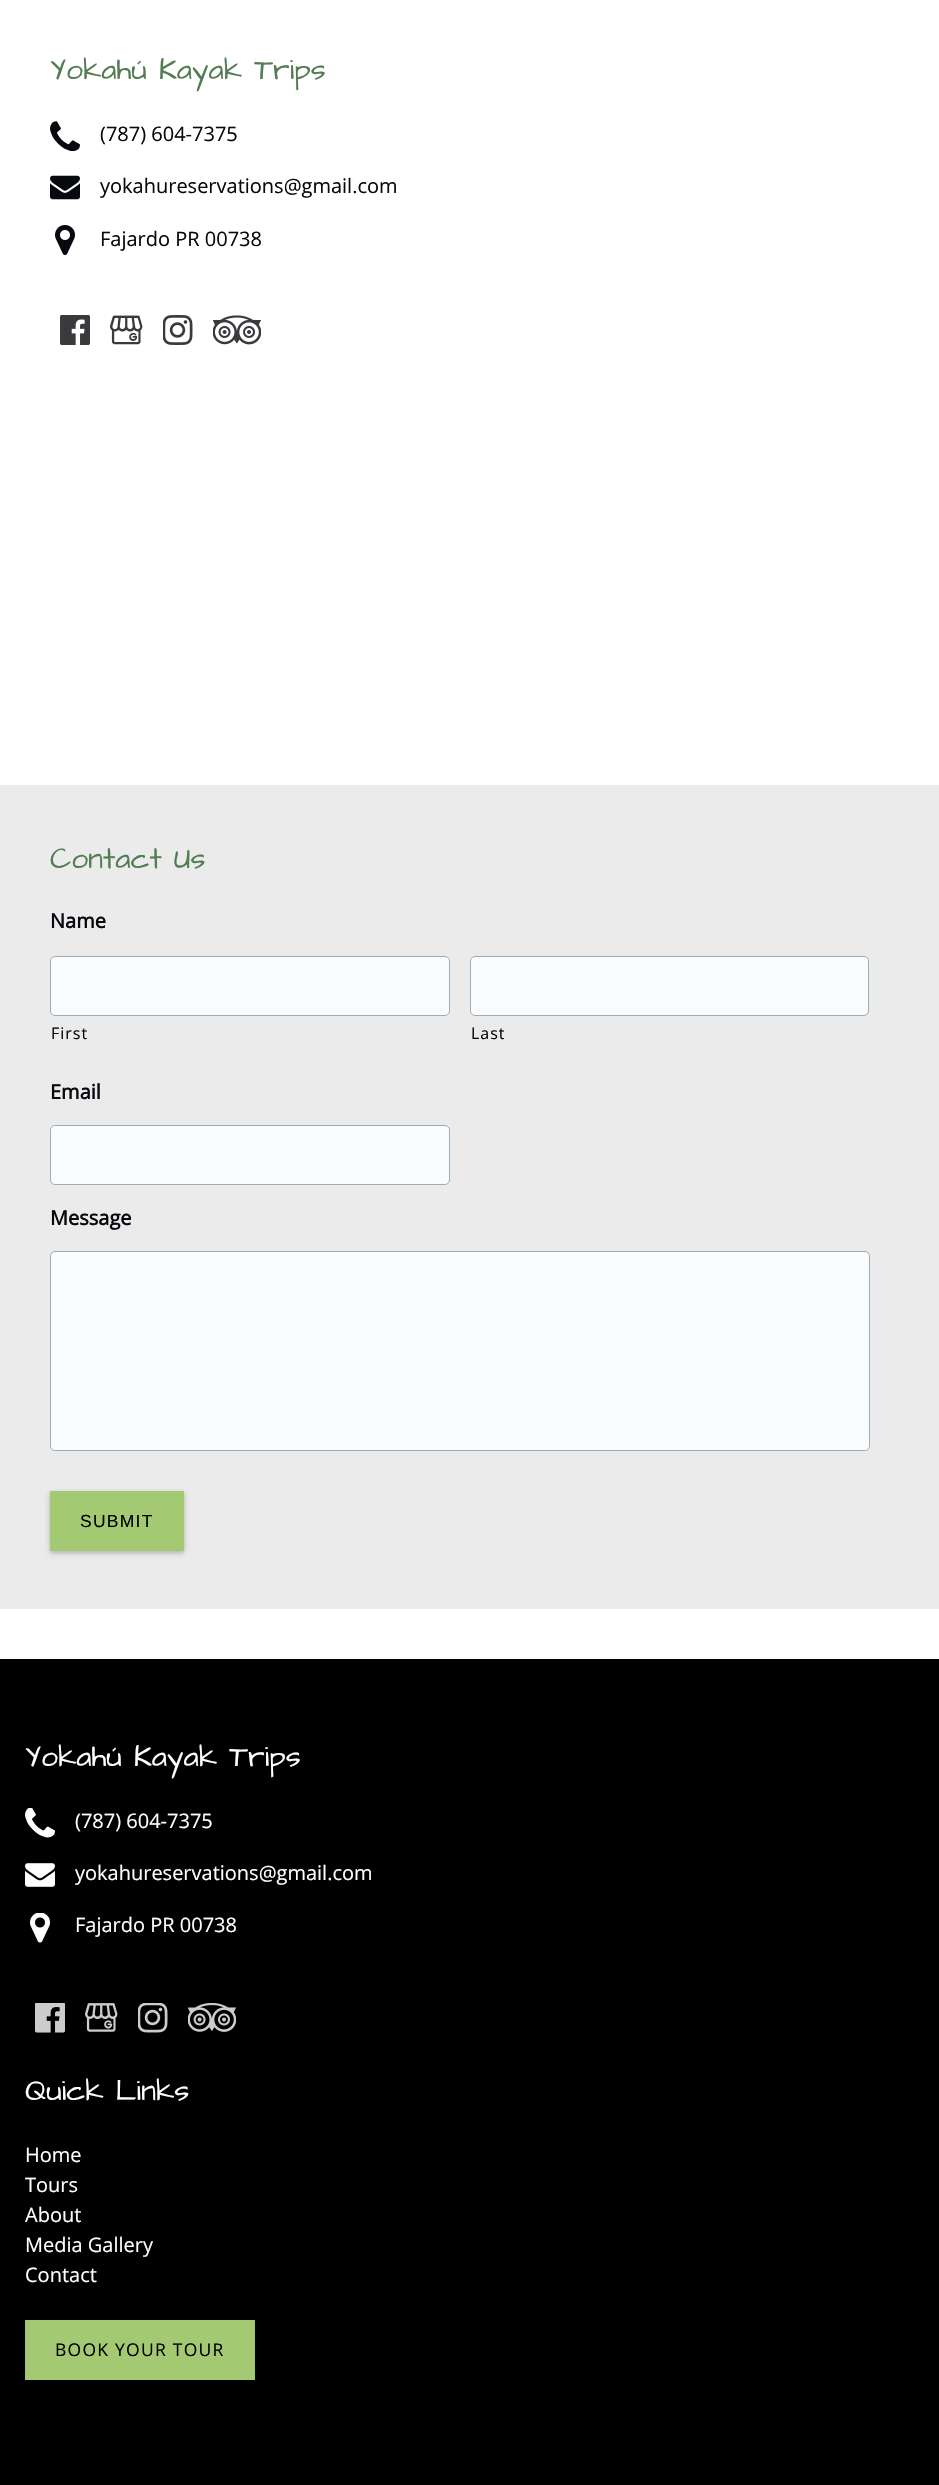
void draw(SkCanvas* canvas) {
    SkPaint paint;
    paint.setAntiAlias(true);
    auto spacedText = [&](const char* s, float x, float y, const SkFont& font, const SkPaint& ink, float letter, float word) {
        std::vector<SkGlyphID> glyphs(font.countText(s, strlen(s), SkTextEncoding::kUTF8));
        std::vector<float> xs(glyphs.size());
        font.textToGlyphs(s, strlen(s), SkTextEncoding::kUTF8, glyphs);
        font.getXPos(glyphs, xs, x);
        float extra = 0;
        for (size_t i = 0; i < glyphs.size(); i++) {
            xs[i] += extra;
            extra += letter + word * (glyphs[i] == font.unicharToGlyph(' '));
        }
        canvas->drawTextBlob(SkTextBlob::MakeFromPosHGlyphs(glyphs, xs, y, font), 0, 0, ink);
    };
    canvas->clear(0xFFFFFFFF);
    SkFont font1(fontMgr->matchFamilyStyle("Architects Daughter", SkFontStyle::Normal()), 30);
    font1.setSubpixel(true);
    paint.setColor(0xFF547C53);
    canvas->drawString("Yokahú Kayak Trips", 50, 79, font1, paint);
    canvas->drawImageRect(SkImages::DeferredFromEncodedData(SkData::MakeFromFileName("img1.png")), SkRect::MakeXYWH(50, 121, 30, 30), SkSamplingOptions());
    SkFont font2(fontMgr->matchFamilyStyle("Open Sans", SkFontStyle::Normal()), 20);
    font2.setSubpixel(true);
    paint.setColor(0xFF08090E);
    canvas->drawString("(787) 604-7375", 100, 141, font2, paint);
    canvas->drawImageRect(SkImages::DeferredFromEncodedData(SkData::MakeFromFileName("img2.png")), SkRect::MakeXYWH(50, 175, 30, 25), SkSamplingOptions());
    canvas->drawString("yokahureservations@gmail.com", 100, 193, font2, paint);
    canvas->drawImageRect(SkImages::DeferredFromEncodedData(SkData::MakeFromFileName("img3.png")), SkRect::MakeXYWH(55, 225, 20, 30), SkSamplingOptions());
    canvas->drawString("Fajardo PR 00738", 100, 246, font2, paint);
    canvas->drawImageRect(SkImages::DeferredFromEncodedData(SkData::MakeFromFileName("img4.png")), SkRect::MakeXYWH(60, 315, 30, 30), SkSamplingOptions());
    canvas->drawImageRect(SkImages::DeferredFromEncodedData(SkData::MakeFromFileName("img5.png")), SkRect::MakeXYWH(110, 315, 33, 30), SkSamplingOptions());
    canvas->drawImageRect(SkImages::DeferredFromEncodedData(SkData::MakeFromFileName("img6.png")), SkRect::MakeXYWH(163, 315, 30, 30), SkSamplingOptions());
    canvas->drawImageRect(SkImages::DeferredFromEncodedData(SkData::MakeFromFileName("img7.png")), SkRect::MakeXYWH(213, 315, 48, 30), SkSamplingOptions());
    paint.setColor(0xFFEBEBEB);
    canvas->drawRect(SkRect::MakeXYWH(0, 785, 939, 824), paint);
    paint.setColor(0xFF547C53);
    canvas->drawString("Contact Us", 50, 868, font1, paint);
    SkFont font3(fontMgr->matchFamilyStyle("Open Sans", SkFontStyle::Bold()), 20);
    font3.setSubpixel(true);
    paint.setColor(0xFF08090E);
    canvas->drawString("Name", 50, 928, font3, paint);
    paint.setColor(0xFFFAFBFC);
    canvas->drawRoundRect(SkRect::MakeXYWH(50.5f, 956.5f, 399, 59), 4.5f, 4.5f, paint);
    paint.setStyle(SkPaint::kStroke_Style);
    paint.setStrokeWidth(1);
    paint.setColor(0xFF9BADB8);
    canvas->drawRoundRect(SkRect::MakeXYWH(50.5f, 956.5f, 399, 59), 4.5f, 4.5f, paint);
    SkFont font4(fontMgr->matchFamilyStyle("Open Sans", SkFontStyle::Normal()), 16);
    font4.setSubpixel(true);
    paint.setStyle(SkPaint::kFill_Style);
    paint.setColor(0xFF08090E);
    spacedText("First", 51, 1039, font4, paint, 1, 0);
    paint.setColor(0xFFFAFBFC);
    canvas->drawRoundRect(SkRect::MakeXYWH(470.5f, 956.5f, 398, 59), 4.5f, 4.5f, paint);
    paint.setStyle(SkPaint::kStroke_Style);
    paint.setColor(0xFF9BADB8);
    canvas->drawRoundRect(SkRect::MakeXYWH(470.5f, 956.5f, 398, 59), 4.5f, 4.5f, paint);
    paint.setStyle(SkPaint::kFill_Style);
    paint.setColor(0xFF08090E);
    spacedText("Last", 471, 1039, font4, paint, 1, 0);
    canvas->drawString("Email", 50, 1099, font3, paint);
    paint.setColor(0xFFFAFBFC);
    canvas->drawRoundRect(SkRect::MakeXYWH(50.5f, 1125.5f, 399, 59), 4.5f, 4.5f, paint);
    paint.setStyle(SkPaint::kStroke_Style);
    paint.setColor(0xFF9BADB8);
    canvas->drawRoundRect(SkRect::MakeXYWH(50.5f, 1125.5f, 399, 59), 4.5f, 4.5f, paint);
    paint.setStyle(SkPaint::kFill_Style);
    paint.setColor(0xFF08090E);
    canvas->drawString("Message", 50, 1225, font3, paint);
    paint.setColor(0xFFFAFBFC);
    canvas->drawRoundRect(SkRect::MakeXYWH(50.5f, 1251.5f, 819, 199), 4.5f, 4.5f, paint);
    paint.setStyle(SkPaint::kStroke_Style);
    paint.setColor(0xFF9BADB8);
    canvas->drawRoundRect(SkRect::MakeXYWH(50.5f, 1251.5f, 819, 199), 4.5f, 4.5f, paint);
    paint.setStyle(SkPaint::kFill_Style);
    paint.setColor(0x40000000);
    paint.setMaskFilter(SkMaskFilter::MakeBlur(kNormal_SkBlurStyle, 2.5f));
    canvas->drawRect(SkRect::MakeXYWH(50, 1493, 134, 60), paint);
    paint.setMaskFilter(nullptr);
    paint.setColor(0xFFA4C973);
    canvas->drawRect(SkRect::MakeXYWH(50, 1491, 134, 60), paint);
    SkFont font5(fontMgr->matchFamilyStyle("Liberation Sans", SkFontStyle::Normal()), 17.5f);
    font5.setSubpixel(true);
    paint.setColor(0xFF000000);
    spacedText("SUBMIT", 80, 1527, font5, paint, 1.25f, 0);
    canvas->drawRect(SkRect::MakeXYWH(0, 1659, 939, 826), paint);
    paint.setColor(0xFFFFFFFF);
    canvas->drawString("Yokahú Kayak Trips", 25, 1766, font1, paint);
    canvas->drawImageRect(SkImages::DeferredFromEncodedData(SkData::MakeFromFileName("img8.png")), SkRect::MakeXYWH(25, 1808, 30, 30), SkSamplingOptions());
    canvas->drawString("(787) 604-7375", 75, 1828, font2, paint);
    canvas->drawImageRect(SkImages::DeferredFromEncodedData(SkData::MakeFromFileName("img9.png")), SkRect::MakeXYWH(25, 1863, 30, 24), SkSamplingOptions());
    canvas->drawString("yokahureservations@gmail.com", 75, 1880, font2, paint);
    canvas->drawImageRect(SkImages::DeferredFromEncodedData(SkData::MakeFromFileName("img10.png")), SkRect::MakeXYWH(30, 1913, 20, 30), SkSamplingOptions());
    canvas->drawString("Fajardo PR 00738", 75, 1932, font2, paint);
    canvas->drawImageRect(SkImages::DeferredFromEncodedData(SkData::MakeFromFileName("img11.png")), SkRect::MakeXYWH(35, 2003, 30, 30), SkSamplingOptions());
    canvas->drawImageRect(SkImages::DeferredFromEncodedData(SkData::MakeFromFileName("img12.png")), SkRect::MakeXYWH(85, 2003, 33, 29), SkSamplingOptions());
    canvas->drawImageRect(SkImages::DeferredFromEncodedData(SkData::MakeFromFileName("img13.png")), SkRect::MakeXYWH(138, 2003, 30, 30), SkSamplingOptions());
    canvas->drawImageRect(SkImages::DeferredFromEncodedData(SkData::MakeFromFileName("img14.png")), SkRect::MakeXYWH(188, 2003, 48, 29), SkSamplingOptions());
    canvas->drawString("Quick Links", 25, 2100, font1, paint);
    canvas->drawString("Home", 25, 2162, font2, paint);
    canvas->drawString("Tours", 25, 2192, font2, paint);
    canvas->drawString("About", 25, 2222, font2, paint);
    canvas->drawString("Media Gallery", 25, 2252, font2, paint);
    canvas->drawString("Contact", 25, 2282, font2, paint);
    paint.setColor(0xFFA4C973);
    canvas->drawRect(SkRect::MakeXYWH(25, 2320, 230, 60), paint);
    SkFont font6(fontMgr->matchFamilyStyle("Open Sans", SkFontStyle::Normal()), 17.5f);
    font6.setSubpixel(true);
    paint.setColor(0xFF000000);
    spacedText("BOOK YOUR TOUR", 55, 2356, font6, paint, 1.25f, 0);
}
